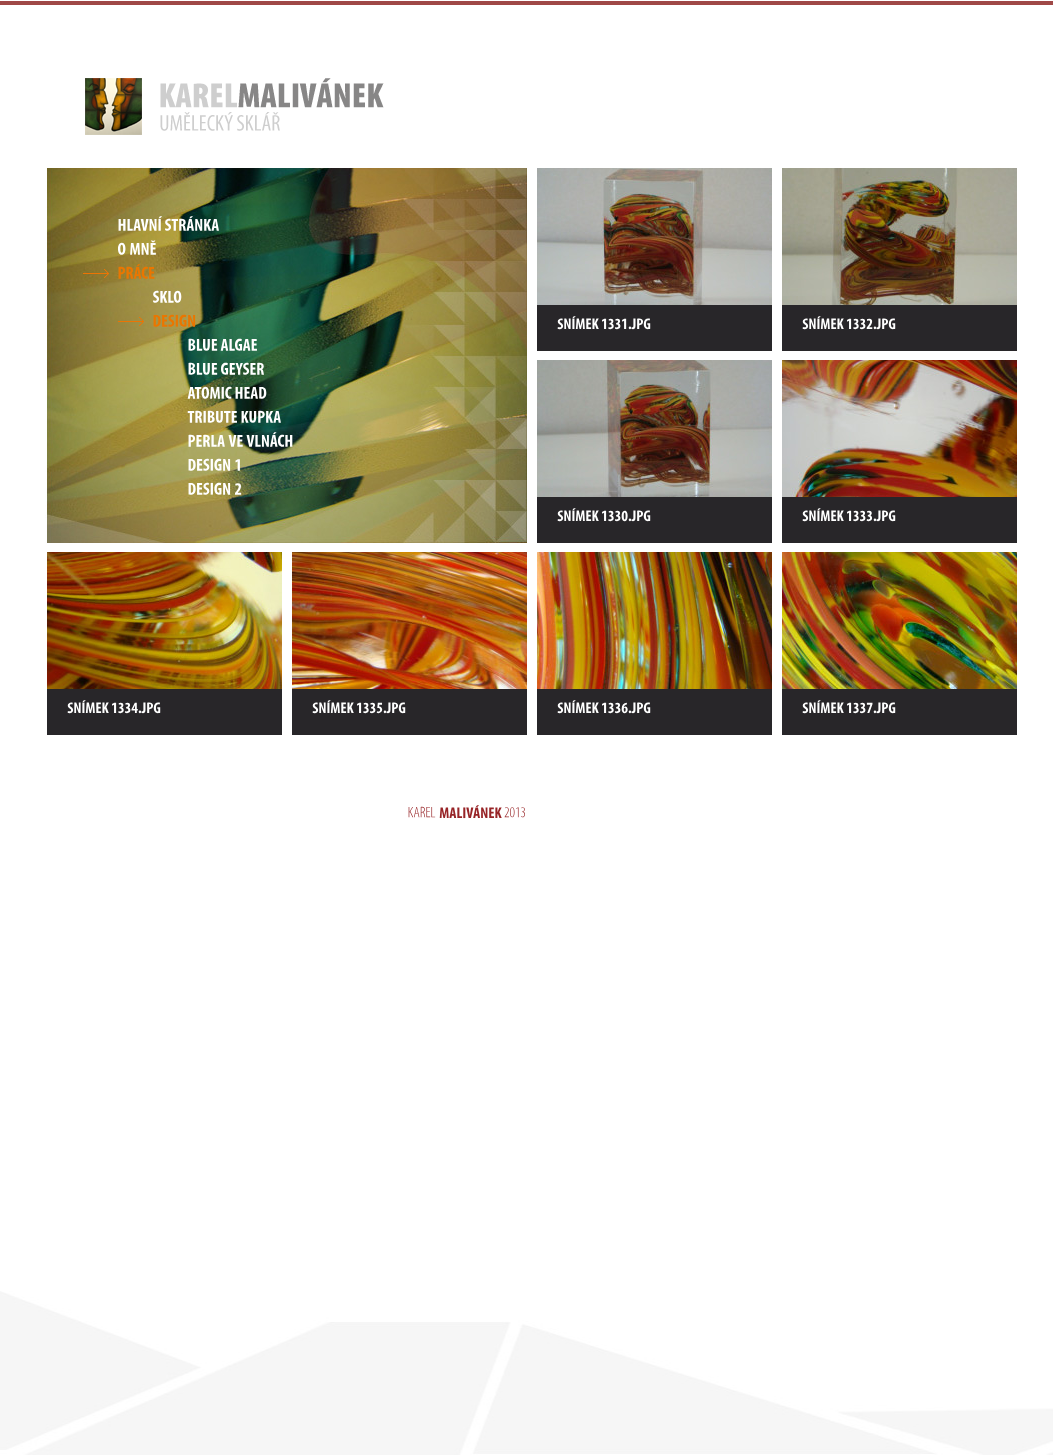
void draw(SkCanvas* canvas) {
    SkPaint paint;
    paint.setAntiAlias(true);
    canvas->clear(0xFFFFFFFF);
    canvas->drawImageRect(SkImages::DeferredFromEncodedData(SkData::MakeFromFileName("img1.png")), SkRect::MakeXYWH(0, 1291, 1053, 164), SkSamplingOptions());
    canvas->drawImageRect(SkImages::DeferredFromEncodedData(SkData::MakeFromFileName("img2.png")), SkRect::MakeXYWH(0, 1, 1053, 4), SkSamplingOptions());
    canvas->drawImageRect(SkImages::DeferredFromEncodedData(SkData::MakeFromFileName("img3.png")), SkRect::MakeXYWH(85, 78, 299, 57), SkSamplingOptions());
    canvas->drawImageRect(SkImages::DeferredFromEncodedData(SkData::MakeFromFileName("img4.png")), SkRect::MakeXYWH(45, 168, 482, 375), SkSamplingOptions());
    canvas->drawImageRect(SkImages::DeferredFromEncodedData(SkData::MakeFromFileName("img5.png")), SkRect::MakeXYWH(118, 216, 45, 15), SkSamplingOptions());
    canvas->drawImageRect(SkImages::DeferredFromEncodedData(SkData::MakeFromFileName("img6.png")), SkRect::MakeXYWH(165, 216, 54, 15), SkSamplingOptions());
    canvas->drawImageRect(SkImages::DeferredFromEncodedData(SkData::MakeFromFileName("img7.png")), SkRect::MakeXYWH(118, 242, 8, 13), SkSamplingOptions());
    canvas->drawImageRect(SkImages::DeferredFromEncodedData(SkData::MakeFromFileName("img8.png")), SkRect::MakeXYWH(130, 240, 26, 15), SkSamplingOptions());
    canvas->drawImageRect(SkImages::DeferredFromEncodedData(SkData::MakeFromFileName("img9.png")), SkRect::MakeXYWH(83, 269, 26, 9), SkSamplingOptions());
    canvas->drawImageRect(SkImages::DeferredFromEncodedData(SkData::MakeFromFileName("img10.png")), SkRect::MakeXYWH(118, 264, 37, 15), SkSamplingOptions());
    canvas->drawImageRect(SkImages::DeferredFromEncodedData(SkData::MakeFromFileName("img11.png")), SkRect::MakeXYWH(153, 290, 29, 13), SkSamplingOptions());
    canvas->drawImageRect(SkImages::DeferredFromEncodedData(SkData::MakeFromFileName("img12.png")), SkRect::MakeXYWH(118, 317, 26, 9), SkSamplingOptions());
    canvas->drawImageRect(SkImages::DeferredFromEncodedData(SkData::MakeFromFileName("img13.png")), SkRect::MakeXYWH(153, 314, 43, 13), SkSamplingOptions());
    canvas->drawImageRect(SkImages::DeferredFromEncodedData(SkData::MakeFromFileName("img14.png")), SkRect::MakeXYWH(188, 338, 30, 13), SkSamplingOptions());
    canvas->drawImageRect(SkImages::DeferredFromEncodedData(SkData::MakeFromFileName("img15.png")), SkRect::MakeXYWH(220, 338, 37, 13), SkSamplingOptions());
    canvas->drawImageRect(SkImages::DeferredFromEncodedData(SkData::MakeFromFileName("img16.png")), SkRect::MakeXYWH(188, 362, 30, 13), SkSamplingOptions());
    canvas->drawImageRect(SkImages::DeferredFromEncodedData(SkData::MakeFromFileName("img17.png")), SkRect::MakeXYWH(221, 362, 43, 13), SkSamplingOptions());
    canvas->drawImageRect(SkImages::DeferredFromEncodedData(SkData::MakeFromFileName("img18.png")), SkRect::MakeXYWH(187, 386, 45, 13), SkSamplingOptions());
    canvas->drawImageRect(SkImages::DeferredFromEncodedData(SkData::MakeFromFileName("img19.png")), SkRect::MakeXYWH(235, 387, 32, 12), SkSamplingOptions());
    canvas->drawImageRect(SkImages::DeferredFromEncodedData(SkData::MakeFromFileName("img20.png")), SkRect::MakeXYWH(187, 410, 50, 13), SkSamplingOptions());
    canvas->drawImageRect(SkImages::DeferredFromEncodedData(SkData::MakeFromFileName("img21.png")), SkRect::MakeXYWH(241, 410, 40, 13), SkSamplingOptions());
    canvas->drawImageRect(SkImages::DeferredFromEncodedData(SkData::MakeFromFileName("img22.png")), SkRect::MakeXYWH(188, 434, 37, 13), SkSamplingOptions());
    canvas->drawImageRect(SkImages::DeferredFromEncodedData(SkData::MakeFromFileName("img23.png")), SkRect::MakeXYWH(228, 435, 15, 12), SkSamplingOptions());
    canvas->drawImageRect(SkImages::DeferredFromEncodedData(SkData::MakeFromFileName("img24.png")), SkRect::MakeXYWH(246, 432, 47, 15), SkSamplingOptions());
    canvas->drawImageRect(SkImages::DeferredFromEncodedData(SkData::MakeFromFileName("img25.png")), SkRect::MakeXYWH(188, 458, 43, 13), SkSamplingOptions());
    canvas->drawImageRect(SkImages::DeferredFromEncodedData(SkData::MakeFromFileName("img26.png")), SkRect::MakeXYWH(235, 459, 5, 12), SkSamplingOptions());
    canvas->drawImageRect(SkImages::DeferredFromEncodedData(SkData::MakeFromFileName("img27.png")), SkRect::MakeXYWH(188, 482, 43, 13), SkSamplingOptions());
    canvas->drawImageRect(SkImages::DeferredFromEncodedData(SkData::MakeFromFileName("img28.png")), SkRect::MakeXYWH(235, 483, 7, 12), SkSamplingOptions());
    canvas->drawImageRect(SkImages::DeferredFromEncodedData(SkData::MakeFromFileName("img29.png")), SkRect::MakeXYWH(537, 305, 480, 238), SkSamplingOptions());
    canvas->drawImageRect(SkImages::DeferredFromEncodedData(SkData::MakeFromFileName("img30.png")), SkRect::MakeXYWH(537, 168, 235, 137), SkSamplingOptions());
    canvas->drawImageRect(SkImages::DeferredFromEncodedData(SkData::MakeFromFileName("img31.png")), SkRect::MakeXYWH(557, 316, 42, 14), SkSamplingOptions());
    canvas->drawImageRect(SkImages::DeferredFromEncodedData(SkData::MakeFromFileName("img32.png")), SkRect::MakeXYWH(602, 318, 49, 12), SkSamplingOptions());
    canvas->drawImageRect(SkImages::DeferredFromEncodedData(SkData::MakeFromFileName("img33.png")), SkRect::MakeXYWH(782, 168, 235, 137), SkSamplingOptions());
    canvas->drawImageRect(SkImages::DeferredFromEncodedData(SkData::MakeFromFileName("img31.png")), SkRect::MakeXYWH(802, 316, 42, 14), SkSamplingOptions());
    canvas->drawImageRect(SkImages::DeferredFromEncodedData(SkData::MakeFromFileName("img34.png")), SkRect::MakeXYWH(847, 318, 49, 12), SkSamplingOptions());
    canvas->drawImageRect(SkImages::DeferredFromEncodedData(SkData::MakeFromFileName("img35.png")), SkRect::MakeXYWH(537, 360, 235, 137), SkSamplingOptions());
    canvas->drawImageRect(SkImages::DeferredFromEncodedData(SkData::MakeFromFileName("img31.png")), SkRect::MakeXYWH(557, 508, 42, 14), SkSamplingOptions());
    canvas->drawImageRect(SkImages::DeferredFromEncodedData(SkData::MakeFromFileName("img36.png")), SkRect::MakeXYWH(602, 510, 49, 12), SkSamplingOptions());
    canvas->drawImageRect(SkImages::DeferredFromEncodedData(SkData::MakeFromFileName("img37.png")), SkRect::MakeXYWH(782, 360, 235, 137), SkSamplingOptions());
    canvas->drawImageRect(SkImages::DeferredFromEncodedData(SkData::MakeFromFileName("img31.png")), SkRect::MakeXYWH(802, 508, 42, 14), SkSamplingOptions());
    canvas->drawImageRect(SkImages::DeferredFromEncodedData(SkData::MakeFromFileName("img38.png")), SkRect::MakeXYWH(847, 510, 49, 12), SkSamplingOptions());
    canvas->drawImageRect(SkImages::DeferredFromEncodedData(SkData::MakeFromFileName("img39.png")), SkRect::MakeXYWH(47, 689, 970, 46), SkSamplingOptions());
    canvas->drawImageRect(SkImages::DeferredFromEncodedData(SkData::MakeFromFileName("img40.png")), SkRect::MakeXYWH(47, 552, 235, 137), SkSamplingOptions());
    canvas->drawImageRect(SkImages::DeferredFromEncodedData(SkData::MakeFromFileName("img31.png")), SkRect::MakeXYWH(67, 700, 42, 14), SkSamplingOptions());
    canvas->drawImageRect(SkImages::DeferredFromEncodedData(SkData::MakeFromFileName("img41.png")), SkRect::MakeXYWH(112, 702, 49, 12), SkSamplingOptions());
    canvas->drawImageRect(SkImages::DeferredFromEncodedData(SkData::MakeFromFileName("img42.png")), SkRect::MakeXYWH(292, 552, 235, 137), SkSamplingOptions());
    canvas->drawImageRect(SkImages::DeferredFromEncodedData(SkData::MakeFromFileName("img31.png")), SkRect::MakeXYWH(312, 700, 42, 14), SkSamplingOptions());
    canvas->drawImageRect(SkImages::DeferredFromEncodedData(SkData::MakeFromFileName("img43.png")), SkRect::MakeXYWH(357, 702, 49, 12), SkSamplingOptions());
    canvas->drawImageRect(SkImages::DeferredFromEncodedData(SkData::MakeFromFileName("img44.png")), SkRect::MakeXYWH(537, 552, 235, 137), SkSamplingOptions());
    canvas->drawImageRect(SkImages::DeferredFromEncodedData(SkData::MakeFromFileName("img31.png")), SkRect::MakeXYWH(557, 700, 42, 14), SkSamplingOptions());
    canvas->drawImageRect(SkImages::DeferredFromEncodedData(SkData::MakeFromFileName("img45.png")), SkRect::MakeXYWH(602, 702, 49, 12), SkSamplingOptions());
    canvas->drawImageRect(SkImages::DeferredFromEncodedData(SkData::MakeFromFileName("img46.png")), SkRect::MakeXYWH(782, 552, 235, 137), SkSamplingOptions());
    canvas->drawImageRect(SkImages::DeferredFromEncodedData(SkData::MakeFromFileName("img31.png")), SkRect::MakeXYWH(802, 700, 42, 14), SkSamplingOptions());
    canvas->drawImageRect(SkImages::DeferredFromEncodedData(SkData::MakeFromFileName("img47.png")), SkRect::MakeXYWH(847, 702, 49, 12), SkSamplingOptions());
    canvas->drawImageRect(SkImages::DeferredFromEncodedData(SkData::MakeFromFileName("img48.png")), SkRect::MakeXYWH(408, 806, 28, 12), SkSamplingOptions());
    canvas->drawImageRect(SkImages::DeferredFromEncodedData(SkData::MakeFromFileName("img49.png")), SkRect::MakeXYWH(439, 805, 63, 14), SkSamplingOptions());
    canvas->drawImageRect(SkImages::DeferredFromEncodedData(SkData::MakeFromFileName("img50.png")), SkRect::MakeXYWH(504, 807, 21, 11), SkSamplingOptions());
}
